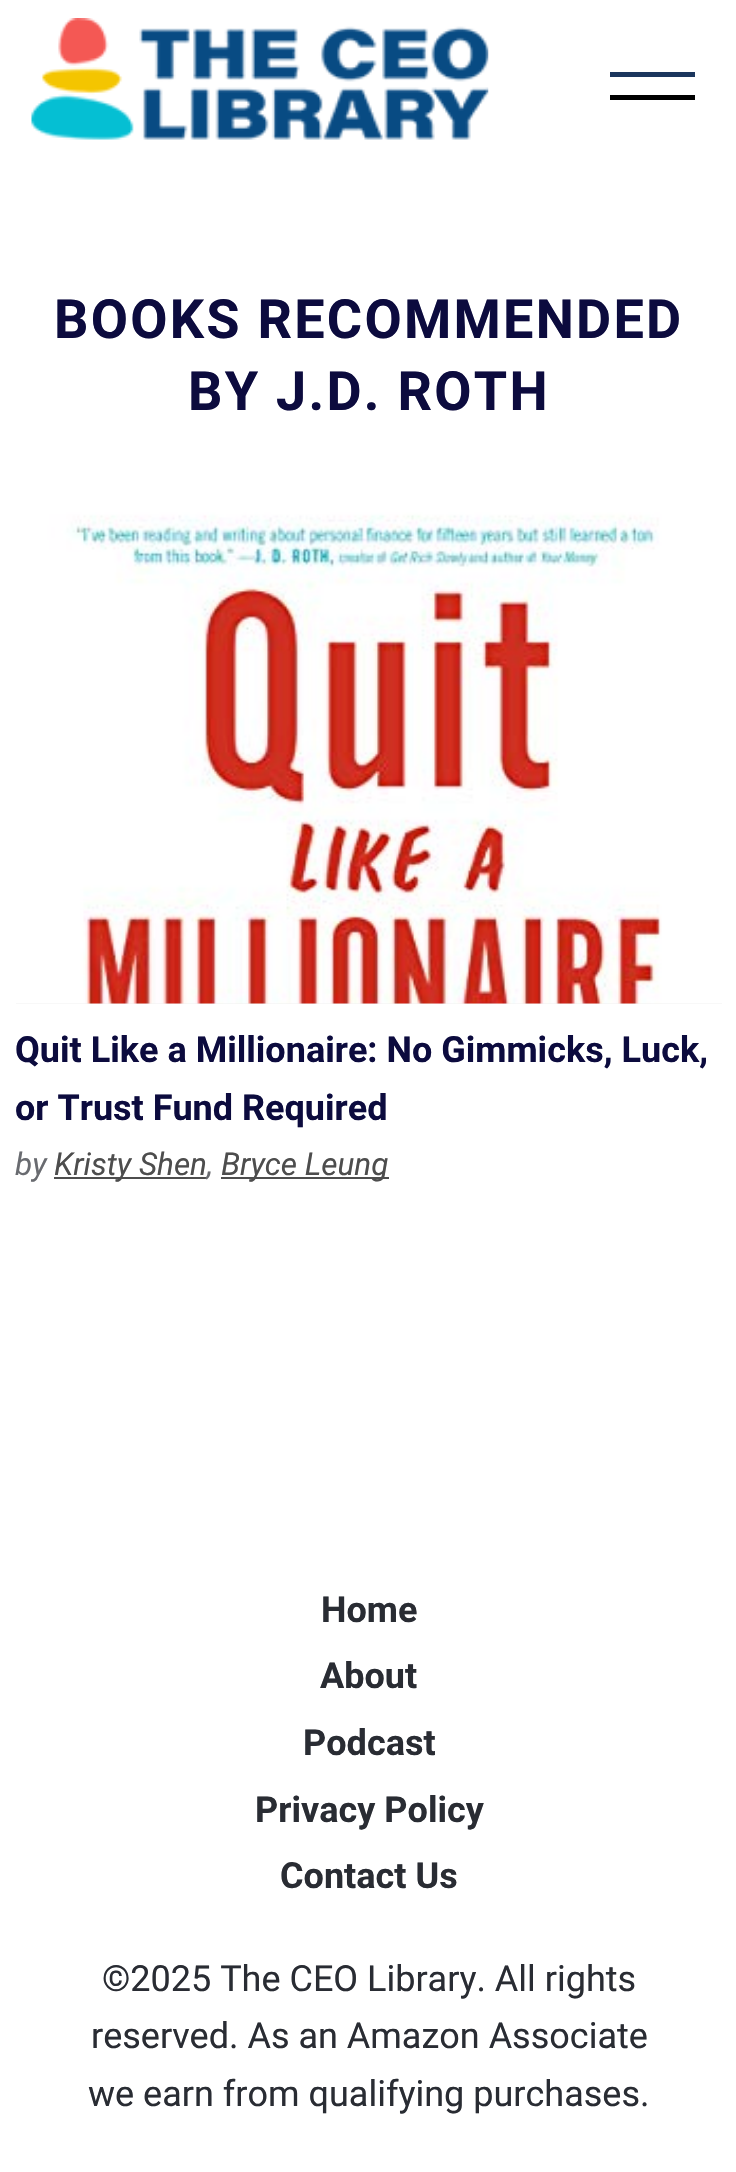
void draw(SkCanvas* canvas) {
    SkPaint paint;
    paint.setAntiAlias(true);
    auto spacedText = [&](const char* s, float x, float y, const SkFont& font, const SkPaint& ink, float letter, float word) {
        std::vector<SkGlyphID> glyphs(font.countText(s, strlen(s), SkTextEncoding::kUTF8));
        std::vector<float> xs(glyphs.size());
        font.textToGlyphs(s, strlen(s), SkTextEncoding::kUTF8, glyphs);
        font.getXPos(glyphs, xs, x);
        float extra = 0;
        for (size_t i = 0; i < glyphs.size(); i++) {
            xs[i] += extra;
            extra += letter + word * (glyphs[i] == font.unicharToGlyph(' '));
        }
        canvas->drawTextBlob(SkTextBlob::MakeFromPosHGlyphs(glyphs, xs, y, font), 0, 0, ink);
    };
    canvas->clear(0xFFFFFFFF);
    canvas->drawImageRect(SkImages::DeferredFromEncodedData(SkData::MakeFromFileName("img1.png")), SkRect::MakeXYWH(31, 18, 458, 122), SkSamplingOptions());
    paint.setColor(0xFF1B365D);
    canvas->drawRect(SkRect::MakeXYWH(610, 72, 85, 5), paint);
    paint.setColor(0xFF000000);
    canvas->drawRect(SkRect::MakeXYWH(610, 95, 85, 5), paint);
    SkFont font1(fontMgr->matchFamilyStyle("Roboto", SkFontStyle::Bold()), 54);
    font1.setSubpixel(true);
    paint.setColor(0xFF0C0B3E);
    spacedText("BOOKS RECOMMENDED", 54, 338, font1, paint, 2.25f, 0);
    spacedText("BY J.D. ROTH", 188, 410, font1, paint, 2.25f, 0);
    paint.setColor(0xFFF1F1F1);
    canvas->drawRect(SkRect::MakeXYWH(16, 1003, 706, 1), paint);
    canvas->drawImageRect(SkImages::DeferredFromEncodedData(SkData::MakeFromFileName("img2.png")), SkRect::MakeXYWH(16, 482, 706, 522), SkSamplingOptions());
    SkFont font2(fontMgr->matchFamilyStyle("Roboto", SkFontStyle::Bold()), 36);
    font2.setSubpixel(true);
    paint.setColor(0xFF0C0B3E);
    canvas->drawString("Quit Like a Millionaire: No Gimmicks, Luck,", 15, 1062, font2, paint);
    canvas->drawString("or Trust Fund Required", 15, 1120, font2, paint);
    SkFont font3(fontMgr->matchFamilyStyle("Roboto", SkFontStyle::Italic()), 31.5f);
    font3.setSubpixel(true);
    paint.setColor(0xFF696B70);
    canvas->drawString("by", 15, 1175, font3, paint);
    paint.setColor(0xFF4D4D4D);
    canvas->drawRect(SkRect::MakeXYWH(54, 1177, 153, 2), paint);
    canvas->drawString("Kristy Shen", 54, 1175, font3, paint);
    paint.setColor(0xFF696B70);
    canvas->drawString(",", 207, 1175, font3, paint);
    paint.setColor(0xFF4D4D4D);
    canvas->drawRect(SkRect::MakeXYWH(221, 1177, 168, 2), paint);
    canvas->drawString("Bryce Leung", 221, 1175, font3, paint);
    paint.setColor(0xFF292C33);
    canvas->drawString("Home", 321, 1622, font2, paint);
    canvas->drawString("About", 320, 1688, font2, paint);
    canvas->drawString("Podcast", 303, 1755, font2, paint);
    canvas->drawString("Privacy Policy", 255, 1822, font2, paint);
    canvas->drawString("Contact Us", 280, 1888, font2, paint);
    SkFont font4(fontMgr->matchFamilyStyle("Roboto", SkFontStyle::Normal()), 36);
    font4.setSubpixel(true);
    canvas->drawString("©2025 The CEO Library. All rights", 102, 1991, font4, paint);
    canvas->drawString("reserved. As an Amazon Associate", 91, 2048, font4, paint);
    canvas->drawString("we earn from qualifying purchases.", 88, 2106, font4, paint);
}
